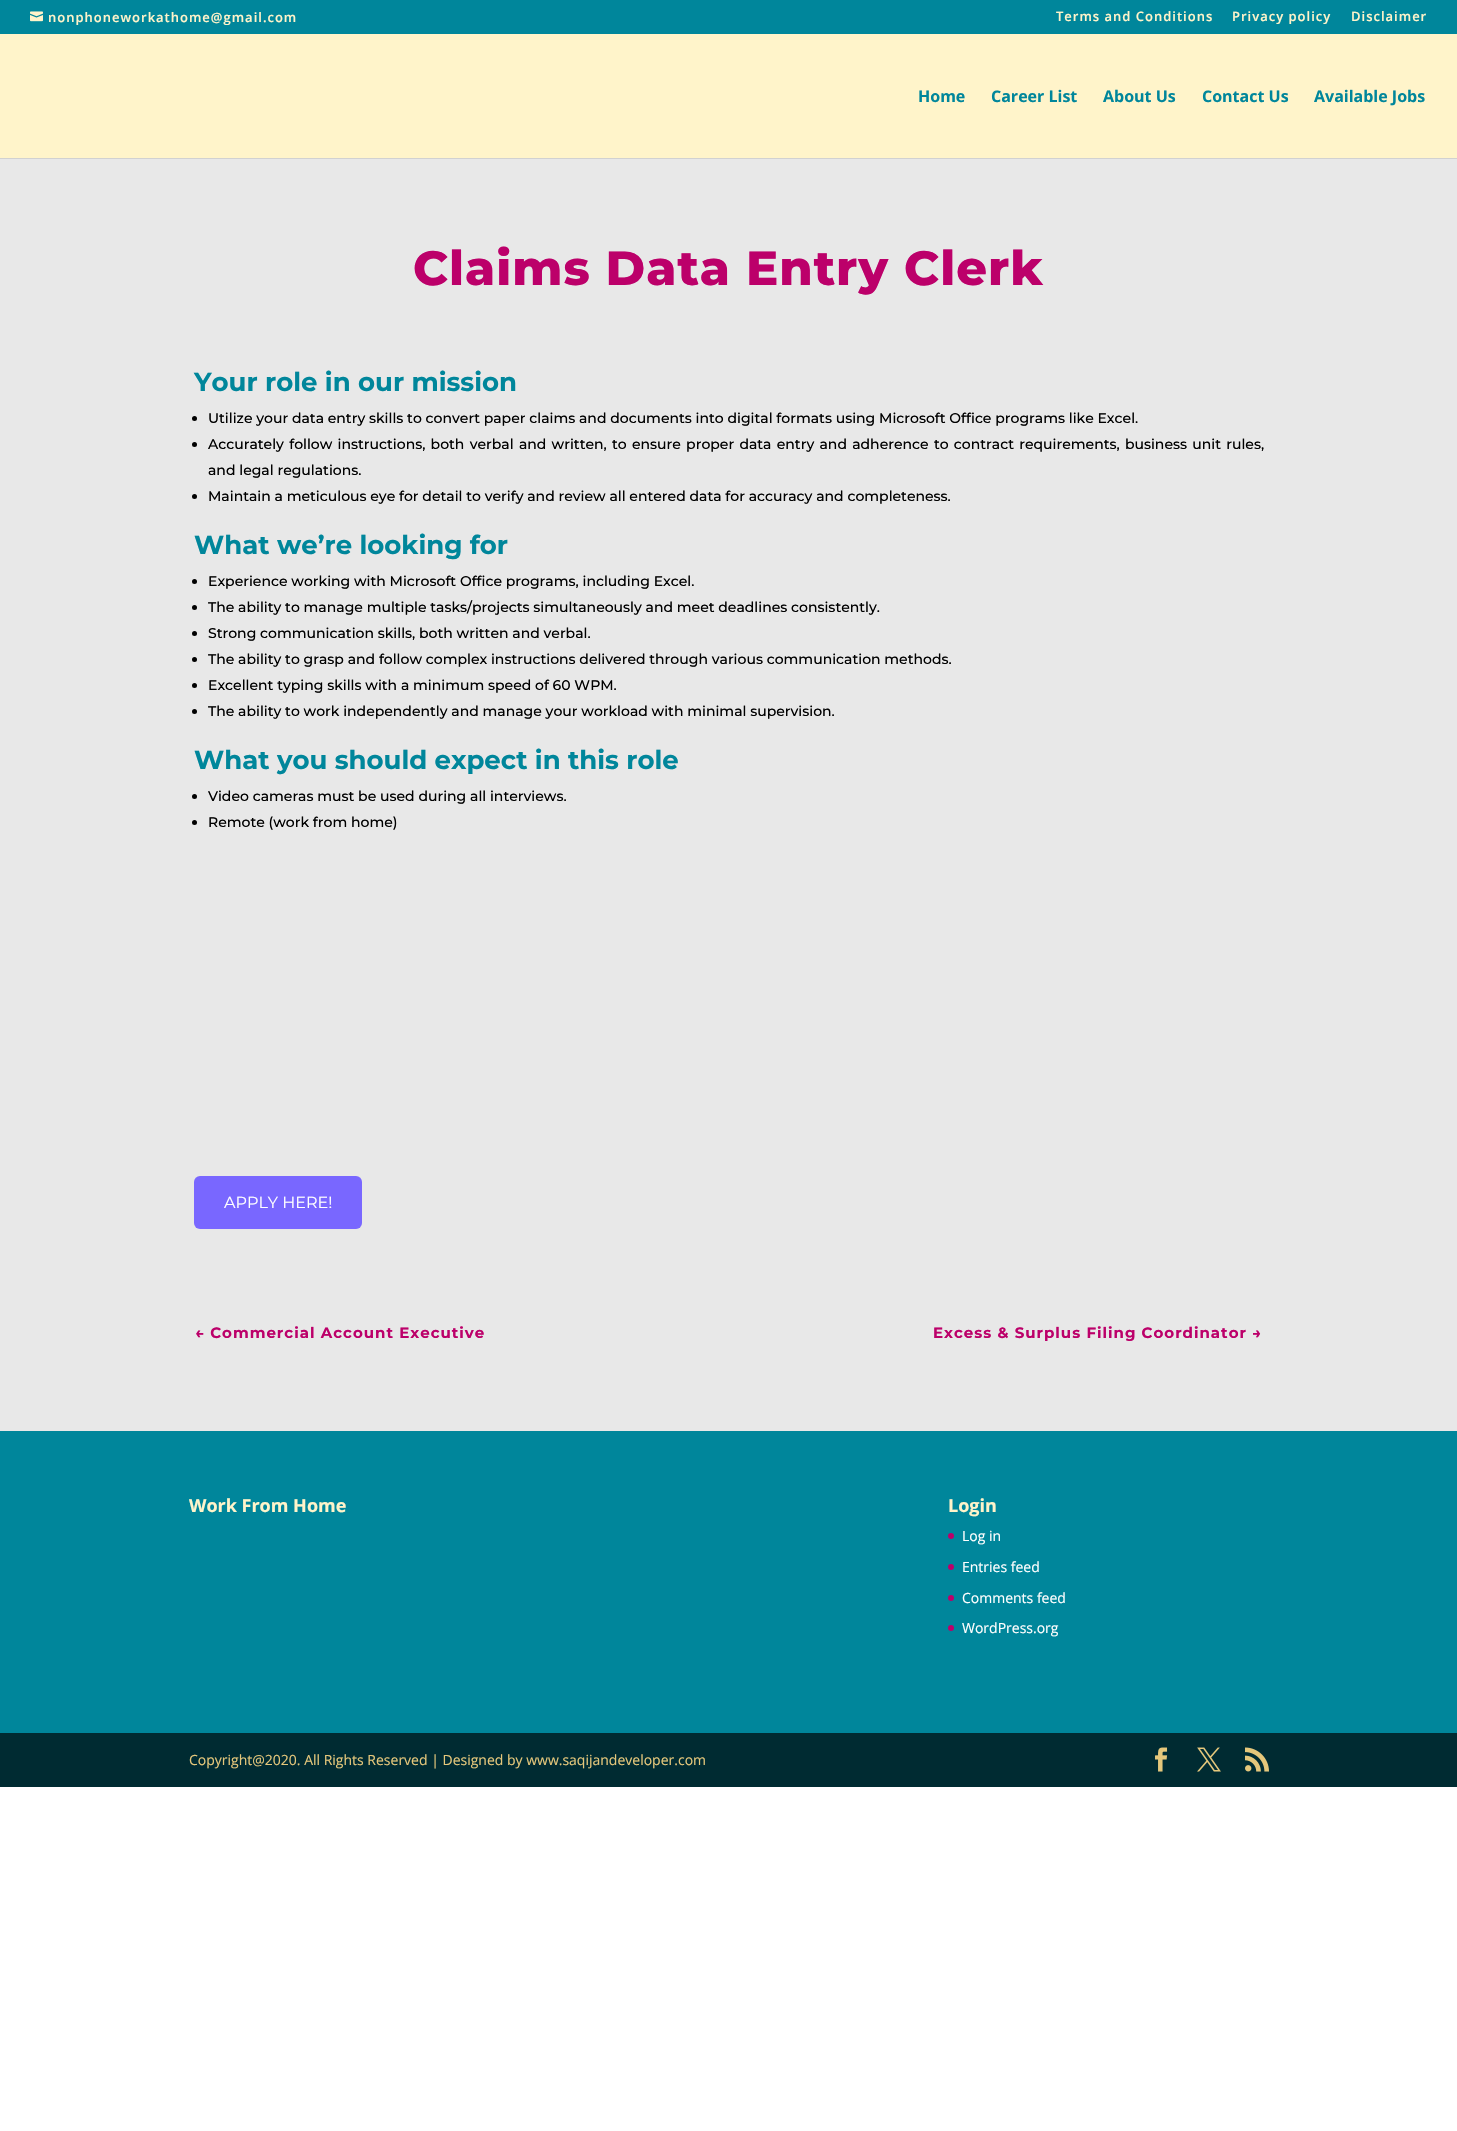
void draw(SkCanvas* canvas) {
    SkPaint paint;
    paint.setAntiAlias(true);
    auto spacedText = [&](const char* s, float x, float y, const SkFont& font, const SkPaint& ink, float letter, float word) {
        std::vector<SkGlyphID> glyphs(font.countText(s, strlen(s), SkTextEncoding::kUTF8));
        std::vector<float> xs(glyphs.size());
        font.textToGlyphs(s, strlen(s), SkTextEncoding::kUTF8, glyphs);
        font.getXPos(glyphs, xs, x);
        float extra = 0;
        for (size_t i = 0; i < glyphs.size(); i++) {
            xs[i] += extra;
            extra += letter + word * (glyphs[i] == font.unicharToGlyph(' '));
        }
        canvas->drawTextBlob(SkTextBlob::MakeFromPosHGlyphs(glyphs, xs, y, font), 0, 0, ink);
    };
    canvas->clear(0xFFFFFFFF);
    paint.setColor(0xFF00869B);
    canvas->drawRect(SkRect::MakeXYWH(0, 0, 1457, 34), paint);
    canvas->drawImageRect(SkImages::DeferredFromEncodedData(SkData::MakeFromFileName("img1.png")), SkRect::MakeXYWH(30, 11, 13, 11), SkSamplingOptions());
    SkFont font1(fontMgr->matchFamilyStyle("Open Sans", SkFontStyle(600, SkFontStyle::kNormal_Width, SkFontStyle::kUpright_Slant)), 13);
    font1.setSubpixel(true);
    paint.setColor(0xFFFFF4CA);
    spacedText("nonphoneworkathome@gmail.com", 48, 22, font1, paint, 1, 0);
    spacedText("Terms and Conditions", 1056, 21, font1, paint, 1, 0);
    spacedText("Privacy policy", 1232, 21, font1, paint, 1, 0);
    spacedText("Disclaimer", 1351, 21, font1, paint, 1, 0);
    paint.setColor(0xFFD1D1D1);
    canvas->drawRect(SkRect::MakeXYWH(0, 158, 1457, 1), paint);
    paint.setColor(0xFFFFF4CA);
    canvas->drawRect(SkRect::MakeXYWH(0, 34, 1457, 124), paint);
    SkFont font2(fontMgr->matchFamilyStyle("Open Sans", SkFontStyle::Bold()), 16);
    font2.setSubpixel(true);
    paint.setColor(0xFF00869B);
    canvas->drawString("Home", 918, 102, font2, paint);
    canvas->drawString("Career List", 991, 102, font2, paint);
    canvas->drawString("About Us", 1103, 102, font2, paint);
    canvas->drawString("Contact Us", 1202, 102, font2, paint);
    canvas->drawString("Available Jobs", 1314, 102, font2, paint);
    paint.setColor(0xFFE8E8E8);
    canvas->drawRect(SkRect::MakeXYWH(0, 159, 1457, 1272), paint);
    SkFont font3(fontMgr->matchFamilyStyle("Montserrat", SkFontStyle(800, SkFontStyle::kNormal_Width, SkFontStyle::kUpright_Slant)), 48);
    font3.setSubpixel(true);
    paint.setColor(0xFFBC006A);
    spacedText("Claims Data Entry Clerk", 413, 285, font3, paint, 1, 0);
    SkFont font4(fontMgr->matchFamilyStyle("Montserrat", SkFontStyle::Bold()), 26);
    font4.setSubpixel(true);
    paint.setColor(0xFF00869B);
    canvas->drawString("Your role in our mission", 194, 391, font4, paint);
    paint.setColor(0xFF000000);
    canvas->drawCircle(194.5f, 418.5f, 2.5f, paint);
    SkFont font5(fontMgr->matchFamilyStyle("Montserrat", SkFontStyle(500, SkFontStyle::kNormal_Width, SkFontStyle::kUpright_Slant)), 14);
    font5.setSubpixel(true);
    canvas->drawString("Utilize your data entry skills to convert paper claims and documents into digital formats using Microsoft Office programs like Excel.", 208, 423, font5, paint);
    canvas->drawCircle(194.5f, 444.5f, 2.5f, paint);
    spacedText("Accurately follow instructions, both verbal and written, to ensure proper data entry and adherence to contract requirements, business unit rules,", 208, 449, font5, paint, 0, 1.5f);
    canvas->drawString("and legal regulations.", 208, 475, font5, paint);
    canvas->drawCircle(194.5f, 496.5f, 2.5f, paint);
    canvas->drawString("Maintain a meticulous eye for detail to verify and review all entered data for accuracy and completeness.", 208, 501, font5, paint);
    paint.setColor(0xFF00869B);
    canvas->drawString("What we’re looking for", 194, 554, font4, paint);
    paint.setColor(0xFF000000);
    canvas->drawCircle(194.5f, 581.5f, 2.5f, paint);
    canvas->drawString("Experience working with Microsoft Office programs, including Excel.", 208, 586, font5, paint);
    canvas->drawCircle(194.5f, 607.5f, 2.5f, paint);
    canvas->drawString("The ability to manage multiple tasks/projects simultaneously and meet deadlines consistently.", 208, 612, font5, paint);
    canvas->drawCircle(194.5f, 633.5f, 2.5f, paint);
    canvas->drawString("Strong communication skills, both written and verbal.", 208, 638, font5, paint);
    canvas->drawCircle(194.5f, 659.5f, 2.5f, paint);
    canvas->drawString("The ability to grasp and follow complex instructions delivered through various communication methods.", 208, 664, font5, paint);
    canvas->drawCircle(194.5f, 685.5f, 2.5f, paint);
    canvas->drawString("Excellent typing skills with a minimum speed of 60 WPM.", 208, 690, font5, paint);
    canvas->drawCircle(194.5f, 711.5f, 2.5f, paint);
    canvas->drawString("The ability to work independently and manage your workload with minimal supervision.", 208, 716, font5, paint);
    paint.setColor(0xFF00869B);
    canvas->drawString("What you should expect in this role", 194, 769, font4, paint);
    paint.setColor(0xFF000000);
    canvas->drawCircle(194.5f, 796.5f, 2.5f, paint);
    canvas->drawString("Video cameras must be used during all interviews.", 208, 801, font5, paint);
    canvas->drawCircle(194.5f, 822.5f, 2.5f, paint);
    canvas->drawString("Remote (work from home)", 208, 827, font5, paint);
    paint.setColor(0xFF7967FF);
    canvas->drawRoundRect(SkRect::MakeXYWH(194, 1176, 168, 53), 6, 6, paint);
    SkFont font6(fontMgr->matchFamilyStyle("Montserrat", SkFontStyle::Normal()), 16);
    font6.setSubpixel(true);
    paint.setColor(0xFFFFFFFF);
    canvas->drawString("APPLY HERE!", 224, 1208, font6, paint);
    SkFont font7(fontMgr->matchFamilyStyle("Montserrat", SkFontStyle::Bold()), 15);
    font7.setSubpixel(true);
    paint.setColor(0xFFBC006A);
    spacedText("← Commercial Account Executive", 195, 1338, font7, paint, 1, 0);
    spacedText("Excess & Surplus Filing Coordinator →", 933, 1338, font7, paint, 1, 0);
    paint.setColor(0xFF00869B);
    canvas->drawRect(SkRect::MakeXYWH(0, 1431, 1457, 302), paint);
    SkFont font8(fontMgr->matchFamilyStyle("Open Sans", SkFontStyle::Bold()), 18);
    font8.setSubpixel(true);
    paint.setColor(0xFFFFF4CA);
    canvas->drawString("Work From Home", 189, 1512, font8, paint);
    canvas->drawString("Login", 948, 1512, font8, paint);
    paint.setColor(0xFFBC006A);
    canvas->drawCircle(951, 1536, 3, paint);
    SkFont font9(fontMgr->matchFamilyStyle("Open Sans", SkFontStyle::Normal()), 14);
    font9.setSubpixel(true);
    paint.setColor(0xFFFFFFFF);
    canvas->drawString("Log in", 962, 1541, font9, paint);
    paint.setColor(0xFFBC006A);
    canvas->drawCircle(951, 1567, 3, paint);
    paint.setColor(0xFFFFFFFF);
    canvas->drawString("Entries feed", 962, 1572, font9, paint);
    paint.setColor(0xFFBC006A);
    canvas->drawCircle(951, 1598, 3, paint);
    paint.setColor(0xFFFFFFFF);
    canvas->drawString("Comments feed", 962, 1603, font9, paint);
    paint.setColor(0xFFBC006A);
    canvas->drawCircle(951, 1628, 3, paint);
    paint.setColor(0xFFFFFFFF);
    canvas->drawString("WordPress.org", 962, 1633, font9, paint);
    paint.setColor(0xFF002B32);
    canvas->drawRect(SkRect::MakeXYWH(0, 1733, 1457, 54), paint);
    paint.setColor(0xFFE5C77B);
    canvas->drawString("Copyright@2020. All Rights Reserved | Designed by www.saqijandeveloper.com", 189, 1765, font9, paint);
    canvas->drawImageRect(SkImages::DeferredFromEncodedData(SkData::MakeFromFileName("img2.png")), SkRect::MakeXYWH(1155, 1747, 13, 25), SkSamplingOptions());
    canvas->drawImageRect(SkImages::DeferredFromEncodedData(SkData::MakeFromFileName("img3.png")), SkRect::MakeXYWH(1197, 1747, 24, 25), SkSamplingOptions());
    canvas->drawImageRect(SkImages::DeferredFromEncodedData(SkData::MakeFromFileName("img4.png")), SkRect::MakeXYWH(1245, 1747, 24, 25), SkSamplingOptions());
}
